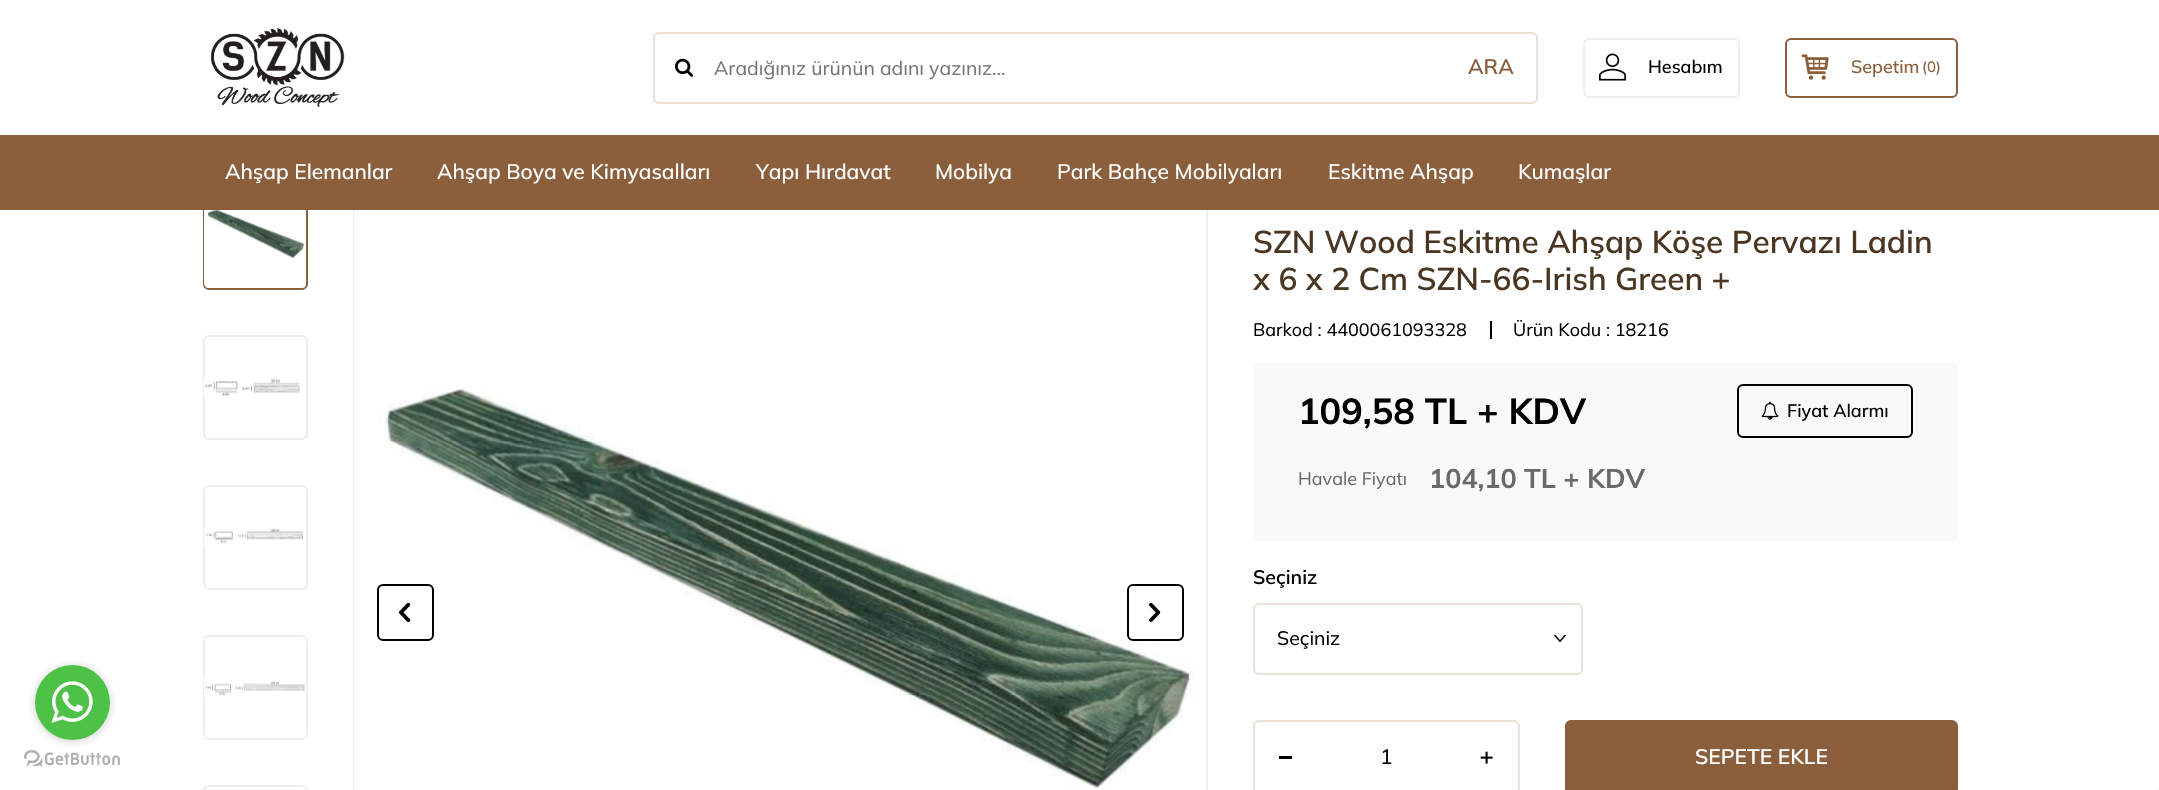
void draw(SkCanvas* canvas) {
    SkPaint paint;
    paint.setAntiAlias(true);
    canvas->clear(0xFFFFFFFF);
    canvas->drawImageRect(SkImages::DeferredFromEncodedData(SkData::MakeFromFileName("img1.png")), SkRect::MakeXYWH(211, 27, 134, 80), SkSamplingOptions());
    paint.setStyle(SkPaint::kStroke_Style);
    paint.setStrokeWidth(2);
    paint.setColor(0xFFEAE0D5);
    canvas->drawRoundRect(SkRect::MakeXYWH(654, 33, 883, 70), 5, 5, paint);
    canvas->drawImageRect(SkImages::DeferredFromEncodedData(SkData::MakeFromFileName("img2.png")), SkRect::MakeXYWH(675, 58, 19, 19), SkSamplingOptions());
    SkFont font1(fontMgr->matchFamilyStyle("Mulish", SkFontStyle::Normal()), 19.5f);
    font1.setSubpixel(true);
    paint.setStyle(SkPaint::kFill_Style);
    paint.setColor(0xFF757575);
    canvas->drawString("Aradığınız ürünün adını yazınız...", 714, 75, font1, paint);
    SkFont font2(fontMgr->matchFamilyStyle("Mulish", SkFontStyle(600, SkFontStyle::kNormal_Width, SkFontStyle::kUpright_Slant)), 21);
    font2.setSubpixel(true);
    paint.setColor(0xFF8B5E3C);
    canvas->drawString("ARA", 1468, 74, font2, paint);
    paint.setStyle(SkPaint::kStroke_Style);
    paint.setColor(0xFFEEEEEE);
    canvas->drawRoundRect(SkRect::MakeXYWH(1584, 39, 155, 58), 5, 5, paint);
    canvas->drawImageRect(SkImages::DeferredFromEncodedData(SkData::MakeFromFileName("img3.png")), SkRect::MakeXYWH(1599, 53, 27, 28), SkSamplingOptions());
    SkFont font3(fontMgr->matchFamilyStyle("Mulish", SkFontStyle(500, SkFontStyle::kNormal_Width, SkFontStyle::kUpright_Slant)), 18);
    font3.setSubpixel(true);
    paint.setStyle(SkPaint::kFill_Style);
    paint.setColor(0xFF000000);
    canvas->drawString("Hesabım", 1648, 73, font3, paint);
    paint.setStyle(SkPaint::kStroke_Style);
    paint.setColor(0xFF8B5E3C);
    canvas->drawRoundRect(SkRect::MakeXYWH(1786, 39, 171, 58), 5, 5, paint);
    canvas->drawImageRect(SkImages::DeferredFromEncodedData(SkData::MakeFromFileName("img4.png")), SkRect::MakeXYWH(1801, 54, 28, 26), SkSamplingOptions());
    paint.setStyle(SkPaint::kFill_Style);
    canvas->drawString("Sepetim", 1851, 73, font3, paint);
    SkFont font4(fontMgr->matchFamilyStyle("Mulish", SkFontStyle(500, SkFontStyle::kNormal_Width, SkFontStyle::kUpright_Slant)), 15);
    font4.setSubpixel(true);
    canvas->drawString("(0)", 1922, 72, font4, paint);
    paint.setStyle(SkPaint::kStroke_Style);
    canvas->drawRoundRect(SkRect::MakeXYWH(204, 186, 103, 103), 5, 5, paint);
    paint.setColor(0xFFEEEEEE);
    canvas->drawRect(SkRect::MakeXYWH(354, 186, 853, 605), paint);
    paint.setStyle(SkPaint::kFill_Style);
    paint.setColor(0xFF8B5E3C);
    canvas->drawRect(SkRect::MakeXYWH(0, 135, 2159, 75), paint);
    SkFont font5(fontMgr->matchFamilyStyle("Mulish", SkFontStyle(500, SkFontStyle::kNormal_Width, SkFontStyle::kUpright_Slant)), 21);
    font5.setSubpixel(true);
    paint.setColor(0xFFFFFFFF);
    canvas->drawString("Ahşap Elemanlar", 225, 179, font5, paint);
    canvas->drawString("Ahşap Boya ve Kimyasalları", 437, 179, font5, paint);
    canvas->drawString("Yapı Hırdavat", 756, 179, font5, paint);
    canvas->drawString("Mobilya", 935, 179, font5, paint);
    canvas->drawString("Park Bahçe Mobilyaları", 1057, 179, font5, paint);
    canvas->drawString("Eskitme Ahşap", 1328, 179, font5, paint);
    canvas->drawString("Kumaşlar", 1518, 179, font5, paint);
    canvas->drawImageRect(SkImages::DeferredFromEncodedData(SkData::MakeFromFileName("img6.png")), SkRect::MakeXYWH(24, 750, 96, 17), SkSamplingOptions());
    paint.setColor(0x66888888);
    paint.setMaskFilter(SkMaskFilter::MakeBlur(kNormal_SkBlurStyle, 5));
    canvas->drawRoundRect(SkRect::MakeXYWH(35, 666, 75, 75), 37.5f, 37.5f, paint);
    paint.setMaskFilter(nullptr);
    paint.setColor(0xFF4DC247);
    canvas->drawCircle(72.5f, 702.5f, 37.5f, paint);
    canvas->drawImageRect(SkImages::DeferredFromEncodedData(SkData::MakeFromFileName("img5.png")), SkRect::MakeXYWH(51, 681, 42, 42), SkSamplingOptions());
    canvas->drawImageRect(SkImages::DeferredFromEncodedData(SkData::MakeFromFileName("img7.png")), SkRect::MakeXYWH(204, 210, 102, 78), SkSamplingOptions());
    paint.setStyle(SkPaint::kStroke_Style);
    paint.setColor(0xFFEEEEEE);
    canvas->drawRoundRect(SkRect::MakeXYWH(204, 336, 103, 103), 5, 5, paint);
    canvas->drawImageRect(SkImages::DeferredFromEncodedData(SkData::MakeFromFileName("img8.png")), SkRect::MakeXYWH(204, 377, 96, 21), SkSamplingOptions());
    canvas->drawRoundRect(SkRect::MakeXYWH(204, 486, 103, 103), 5, 5, paint);
    canvas->drawImageRect(SkImages::DeferredFromEncodedData(SkData::MakeFromFileName("img9.png")), SkRect::MakeXYWH(204, 527, 100, 19), SkSamplingOptions());
    canvas->drawRoundRect(SkRect::MakeXYWH(204, 636, 103, 103), 5, 5, paint);
    canvas->drawImageRect(SkImages::DeferredFromEncodedData(SkData::MakeFromFileName("img10.png")), SkRect::MakeXYWH(204, 677, 101, 21), SkSamplingOptions());
    canvas->drawRoundRect(SkRect::MakeXYWH(204, 786, 103, 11), 5, 5, paint);
    canvas->drawImageRect(SkImages::DeferredFromEncodedData(SkData::MakeFromFileName("img11.png")), SkRect::MakeXYWH(354, 210, 852, 580), SkSamplingOptions());
    paint.setColor(0xFF000000);
    canvas->drawRoundRect(SkRect::MakeXYWH(378, 585, 55, 55), 5, 5, paint);
    canvas->drawImageRect(SkImages::DeferredFromEncodedData(SkData::MakeFromFileName("img12.png")), SkRect::MakeXYWH(399, 602, 12, 20), SkSamplingOptions());
    paint.setStyle(SkPaint::kFill_Style);
    paint.setColor(0xFFFFFFFF);
    canvas->drawRoundRect(SkRect::MakeXYWH(1128, 585, 55, 55), 5, 5, paint);
    paint.setStyle(SkPaint::kStroke_Style);
    paint.setColor(0xFF000000);
    canvas->drawRoundRect(SkRect::MakeXYWH(1128, 585, 55, 55), 5, 5, paint);
    canvas->drawImageRect(SkImages::DeferredFromEncodedData(SkData::MakeFromFileName("img13.png")), SkRect::MakeXYWH(1149, 602, 12, 20), SkSamplingOptions());
    SkFont font6(fontMgr->matchFamilyStyle("Mulish", SkFontStyle(600, SkFontStyle::kNormal_Width, SkFontStyle::kUpright_Slant)), 31.5f);
    font6.setSubpixel(true);
    paint.setStyle(SkPaint::kFill_Style);
    paint.setColor(0xFF4B3621);
    canvas->drawString("SZN Wood Eskitme Ahşap Köşe Pervazı Ladin", 1253, 253, font6, paint);
    canvas->drawString("x 6 x 2 Cm SZN-66-Irish Green +", 1253, 290, font6, paint);
    paint.setColor(0xFF000000);
    canvas->drawRect(SkRect::MakeXYWH(1490, 321, 2, 18), paint);
    SkFont font7(fontMgr->matchFamilyStyle("Mulish", SkFontStyle::Normal()), 18);
    font7.setSubpixel(true);
    canvas->drawString("Barkod : 4400061093328", 1253, 336, font7, paint);
    canvas->drawString("Ürün Kodu : 18216", 1513, 336, font7, paint);
    paint.setColor(0xFFF9F9F9);
    canvas->drawRoundRect(SkRect::MakeXYWH(1253, 362, 705, 180), 6, 6, paint);
    SkFont font8(fontMgr->matchFamilyStyle("Mulish", SkFontStyle::Bold()), 36);
    font8.setSubpixel(true);
    paint.setColor(0xFF000000);
    canvas->drawString("109,58 TL + KDV", 1298, 424, font8, paint);
    paint.setStyle(SkPaint::kStroke_Style);
    canvas->drawRoundRect(SkRect::MakeXYWH(1738, 385, 174, 52), 5, 5, paint);
    canvas->drawImageRect(SkImages::DeferredFromEncodedData(SkData::MakeFromFileName("img14.png")), SkRect::MakeXYWH(1761, 401, 18, 19), SkSamplingOptions());
    paint.setStyle(SkPaint::kFill_Style);
    canvas->drawString("Fiyat Alarmı", 1787, 417, font3, paint);
    paint.setColor(0xFF696969);
    canvas->drawString("Havale Fiyatı", 1298, 485, font7, paint);
    SkFont font9(fontMgr->matchFamilyStyle("Mulish", SkFontStyle::Bold()), 27);
    font9.setSubpixel(true);
    canvas->drawString("104,10 TL + KDV", 1429, 488, font9, paint);
    SkFont font10(fontMgr->matchFamilyStyle("Mulish", SkFontStyle(600, SkFontStyle::kNormal_Width, SkFontStyle::kUpright_Slant)), 19.5f);
    font10.setSubpixel(true);
    paint.setColor(0xFF000000);
    canvas->drawString("Seçiniz", 1253, 584, font10, paint);
    canvas->drawImageRect(SkImages::DeferredFromEncodedData(SkData::MakeFromFileName("img15.png")), SkRect::MakeXYWH(1554, 635, 12, 7), SkSamplingOptions());
    paint.setStyle(SkPaint::kStroke_Style);
    paint.setColor(0xFFEAE0D5);
    canvas->drawRoundRect(SkRect::MakeXYWH(1254, 604, 328, 70), 5, 5, paint);
    paint.setStyle(SkPaint::kFill_Style);
    paint.setColor(0xFF000000);
    canvas->drawString("Seçiniz", 1277, 645, font1, paint);
    paint.setStyle(SkPaint::kStroke_Style);
    paint.setColor(0xFFEAE0D5);
    canvas->drawRoundRect(SkRect::MakeXYWH(1254, 721, 265, 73), 5, 5, paint);
    paint.setStyle(SkPaint::kFill_Style);
    paint.setColor(0xFF000000);
    canvas->drawRect(SkRect::MakeXYWH(1279, 756, 13, 3), paint);
    SkFont font11(fontMgr->matchFamilyStyle("Mulish", SkFontStyle::Normal()), 21);
    font11.setSubpixel(true);
    canvas->drawString("1", 1380, 764, font11, paint);
    canvas->drawImageRect(SkImages::DeferredFromEncodedData(SkData::MakeFromFileName("img16.png")), SkRect::MakeXYWH(1480, 751, 13, 13), SkSamplingOptions());
    paint.setColor(0xFF8B5E3C);
    canvas->drawRoundRect(SkRect::MakeXYWH(1566, 721, 391, 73), 5, 5, paint);
    paint.setStyle(SkPaint::kStroke_Style);
    canvas->drawRoundRect(SkRect::MakeXYWH(1566, 721, 391, 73), 5, 5, paint);
    paint.setStyle(SkPaint::kFill_Style);
    paint.setColor(0xFFFFFFFF);
    canvas->drawString("SEPETE EKLE", 1695, 764, font2, paint);
    paint.setColor(0xFFF5F5F5);
    canvas->drawRect(SkRect::MakeXYWH(2157, 788, 2, 2), paint);
}
